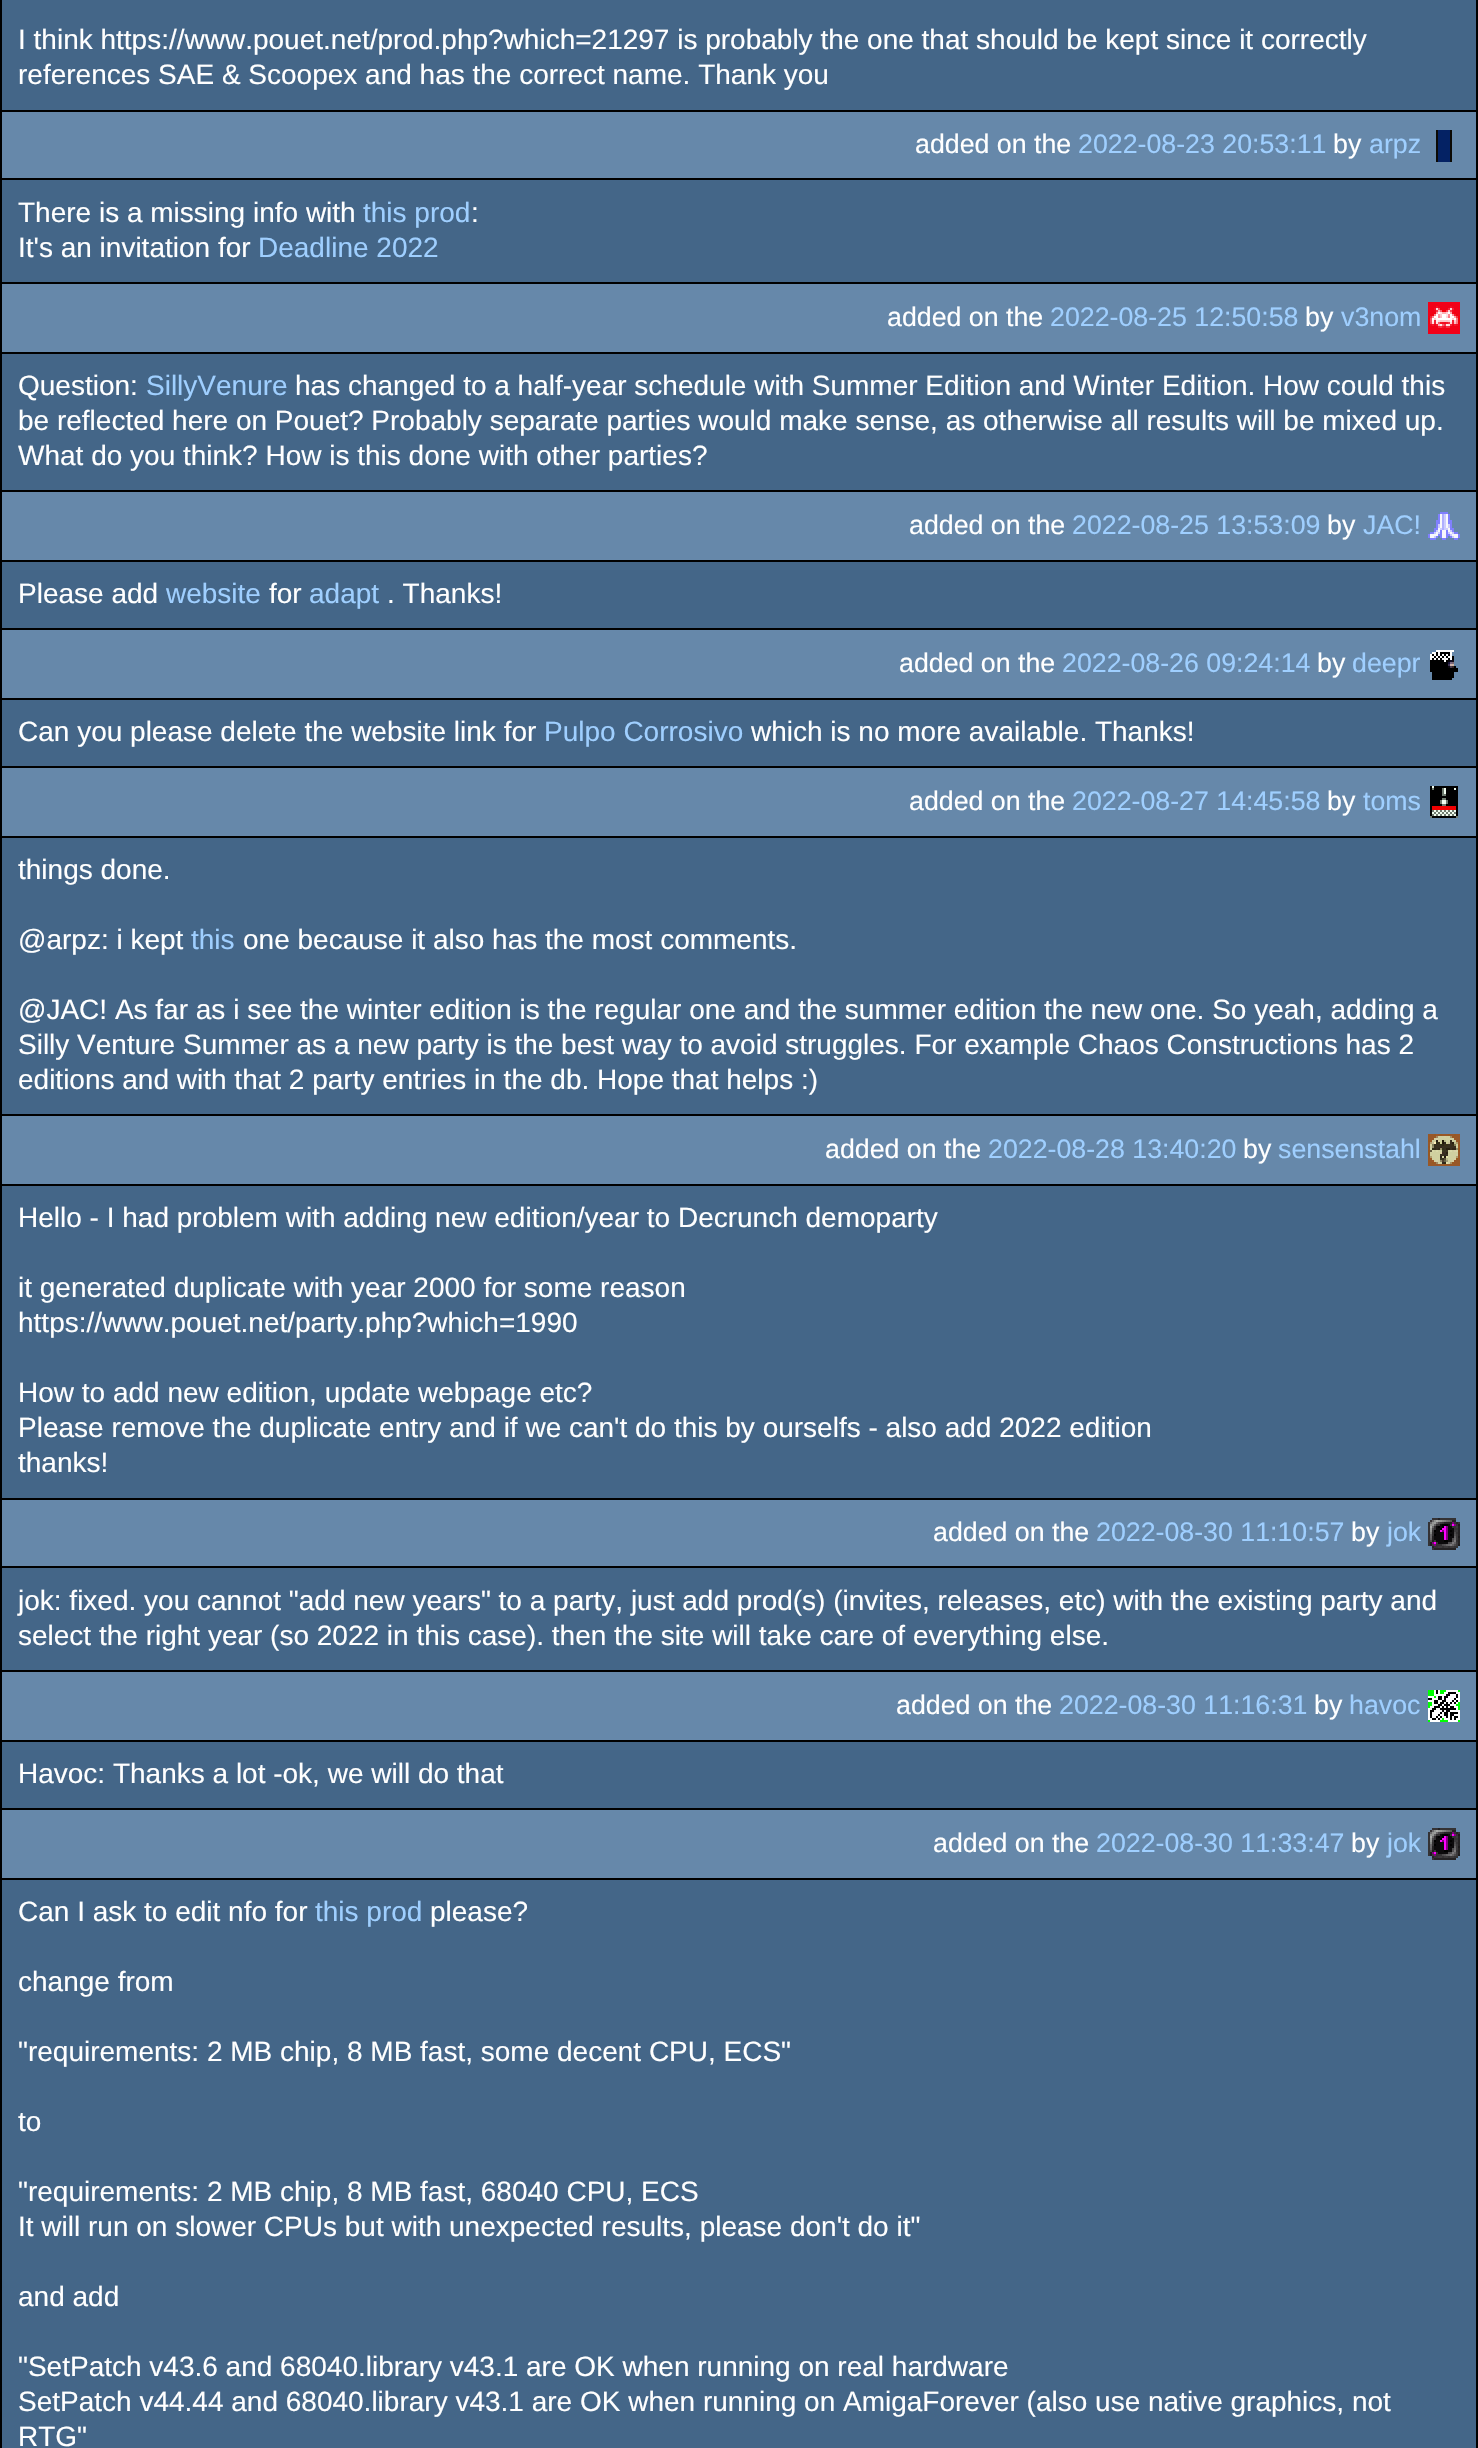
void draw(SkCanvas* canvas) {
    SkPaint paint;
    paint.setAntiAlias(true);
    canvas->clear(0xFF000000);
    paint.setColor(0xFF446688);
    canvas->drawRect(SkRect::MakeXYWH(2, 0, 1474, 110), paint);
    SkFont font1(fontMgr->matchFamilyStyle("Liberation Sans", SkFontStyle::Normal()), 28);
    font1.setSubpixel(true);
    paint.setColor(0xFFFFFFFF);
    canvas->drawString("I think https://www.pouet.net/prod.php?which=21297 is probably the one that should be kept since it correctly", 18, 49, font1, paint);
    canvas->drawString("references SAE & Scoopex and has the correct name. Thank you", 18, 84, font1, paint);
    paint.setColor(0xFF6688AA);
    canvas->drawRect(SkRect::MakeXYWH(2, 112, 1474, 66), paint);
    SkFont font2(fontMgr->matchFamilyStyle("Liberation Sans", SkFontStyle::Normal()), 26.75f);
    font2.setSubpixel(true);
    paint.setColor(0xFFFFFFFF);
    canvas->drawString("added on the", 915, 153, font2, paint);
    paint.setColor(0xFF9FCFFF);
    canvas->drawString("2022-08-23 20:53:11", 1078, 153, font2, paint);
    paint.setColor(0xFFFFFFFF);
    canvas->drawString("by", 1333, 153, font2, paint);
    paint.setColor(0xFF9FCFFF);
    canvas->drawString("arpz", 1369, 153, font2, paint);
    canvas->drawImageRect(SkImages::DeferredFromEncodedData(SkData::MakeFromFileName("img1.png")), SkRect::MakeXYWH(1436, 130, 16, 32), SkSamplingOptions());
    paint.setColor(0xFF446688);
    canvas->drawRect(SkRect::MakeXYWH(2, 180, 1474, 102), paint);
    paint.setColor(0xFFFFFFFF);
    canvas->drawString("There is a missing info with", 18, 222, font1, paint);
    paint.setColor(0xFF9FCFFF);
    canvas->drawString("this prod", 363, 222, font1, paint);
    paint.setColor(0xFFFFFFFF);
    canvas->drawString(":", 471, 222, font1, paint);
    canvas->drawString("It's an invitation for", 18, 257, font1, paint);
    paint.setColor(0xFF9FCFFF);
    canvas->drawString("Deadline 2022", 258, 257, font1, paint);
    paint.setColor(0xFF6688AA);
    canvas->drawRect(SkRect::MakeXYWH(2, 284, 1474, 68), paint);
    paint.setColor(0xFFFFFFFF);
    canvas->drawString("added on the", 887, 326, font2, paint);
    paint.setColor(0xFF9FCFFF);
    canvas->drawString("2022-08-25 12:50:58", 1050, 326, font2, paint);
    paint.setColor(0xFFFFFFFF);
    canvas->drawString("by", 1305, 326, font2, paint);
    paint.setColor(0xFF9FCFFF);
    canvas->drawString("v3nom", 1341, 326, font2, paint);
    canvas->drawImageRect(SkImages::DeferredFromEncodedData(SkData::MakeFromFileName("img2.png")), SkRect::MakeXYWH(1428, 302, 32, 32), SkSamplingOptions());
    paint.setColor(0xFF446688);
    canvas->drawRect(SkRect::MakeXYWH(2, 354, 1474, 136), paint);
    paint.setColor(0xFFFFFFFF);
    canvas->drawString("Question:", 18, 395, font1, paint);
    paint.setColor(0xFF9FCFFF);
    canvas->drawString("SillyVenure", 146, 395, font1, paint);
    paint.setColor(0xFFFFFFFF);
    canvas->drawString("has changed to a half-year schedule with Summer Edition and Winter Edition. How could this", 295, 395, font1, paint);
    canvas->drawString("be reflected here on Pouet? Probably separate parties would make sense, as otherwise all results will be mixed up.", 18, 430, font1, paint);
    canvas->drawString("What do you think? How is this done with other parties?", 18, 465, font1, paint);
    paint.setColor(0xFF6688AA);
    canvas->drawRect(SkRect::MakeXYWH(2, 492, 1474, 68), paint);
    paint.setColor(0xFFFFFFFF);
    canvas->drawString("added on the", 909, 534, font2, paint);
    paint.setColor(0xFF9FCFFF);
    canvas->drawString("2022-08-25 13:53:09", 1072, 534, font2, paint);
    paint.setColor(0xFFFFFFFF);
    canvas->drawString("by", 1327, 534, font2, paint);
    paint.setColor(0xFF9FCFFF);
    canvas->drawString("JAC!", 1363, 534, font2, paint);
    canvas->drawImageRect(SkImages::DeferredFromEncodedData(SkData::MakeFromFileName("img3.png")), SkRect::MakeXYWH(1428, 512, 32, 28), SkSamplingOptions());
    paint.setColor(0xFF446688);
    canvas->drawRect(SkRect::MakeXYWH(2, 562, 1474, 66), paint);
    paint.setColor(0xFFFFFFFF);
    canvas->drawString("Please add", 18, 603, font1, paint);
    paint.setColor(0xFF9FCFFF);
    canvas->drawString("website", 166, 603, font1, paint);
    paint.setColor(0xFFFFFFFF);
    canvas->drawString("for", 269, 603, font1, paint);
    paint.setColor(0xFF9FCFFF);
    canvas->drawString("adapt", 309, 603, font1, paint);
    paint.setColor(0xFFFFFFFF);
    canvas->drawString(". Thanks!", 387, 603, font1, paint);
    paint.setColor(0xFF6688AA);
    canvas->drawRect(SkRect::MakeXYWH(2, 630, 1474, 68), paint);
    paint.setColor(0xFFFFFFFF);
    canvas->drawString("added on the", 899, 672, font2, paint);
    paint.setColor(0xFF9FCFFF);
    canvas->drawString("2022-08-26 09:24:14", 1062, 672, font2, paint);
    paint.setColor(0xFFFFFFFF);
    canvas->drawString("by", 1317, 672, font2, paint);
    paint.setColor(0xFF9FCFFF);
    canvas->drawString("deepr", 1352, 672, font2, paint);
    canvas->drawImageRect(SkImages::DeferredFromEncodedData(SkData::MakeFromFileName("img4.png")), SkRect::MakeXYWH(1430, 650, 28, 30), SkSamplingOptions());
    paint.setColor(0xFF446688);
    canvas->drawRect(SkRect::MakeXYWH(2, 700, 1474, 66), paint);
    paint.setColor(0xFFFFFFFF);
    canvas->drawString("Can you please delete the website link for", 18, 741, font1, paint);
    paint.setColor(0xFF9FCFFF);
    canvas->drawString("Pulpo Corrosivo", 544, 741, font1, paint);
    paint.setColor(0xFFFFFFFF);
    canvas->drawString("which is no more available. Thanks!", 751, 741, font1, paint);
    paint.setColor(0xFF6688AA);
    canvas->drawRect(SkRect::MakeXYWH(2, 768, 1474, 68), paint);
    paint.setColor(0xFFFFFFFF);
    canvas->drawString("added on the", 909, 810, font2, paint);
    paint.setColor(0xFF9FCFFF);
    canvas->drawString("2022-08-27 14:45:58", 1072, 810, font2, paint);
    paint.setColor(0xFFFFFFFF);
    canvas->drawString("by", 1327, 810, font2, paint);
    paint.setColor(0xFF9FCFFF);
    canvas->drawString("toms", 1363, 810, font2, paint);
    canvas->drawImageRect(SkImages::DeferredFromEncodedData(SkData::MakeFromFileName("img5.png")), SkRect::MakeXYWH(1430, 786, 28, 32), SkSamplingOptions());
    paint.setColor(0xFF446688);
    canvas->drawRect(SkRect::MakeXYWH(2, 838, 1474, 276), paint);
    paint.setColor(0xFFFFFFFF);
    canvas->drawString("things done.", 18, 879, font1, paint);
    canvas->drawString("@arpz: i kept", 18, 949, font1, paint);
    paint.setColor(0xFF9FCFFF);
    canvas->drawString("this", 191, 949, font1, paint);
    paint.setColor(0xFFFFFFFF);
    canvas->drawString("one because it also has the most comments.", 243, 949, font1, paint);
    canvas->drawString("@JAC! As far as i see the winter edition is the regular one and the summer edition the new one. So yeah, adding a", 18, 1019, font1, paint);
    canvas->drawString("Silly Venture Summer as a new party is the best way to avoid struggles. For example Chaos Constructions has 2", 18, 1054, font1, paint);
    canvas->drawString("editions and with that 2 party entries in the db. Hope that helps :)", 18, 1089, font1, paint);
    paint.setColor(0xFF6688AA);
    canvas->drawRect(SkRect::MakeXYWH(2, 1116, 1474, 68), paint);
    paint.setColor(0xFFFFFFFF);
    canvas->drawString("added on the", 825, 1158, font2, paint);
    paint.setColor(0xFF9FCFFF);
    canvas->drawString("2022-08-28 13:40:20", 988, 1158, font2, paint);
    paint.setColor(0xFFFFFFFF);
    canvas->drawString("by", 1243, 1158, font2, paint);
    paint.setColor(0xFF9FCFFF);
    canvas->drawString("sensenstahl", 1278, 1158, font2, paint);
    canvas->drawImageRect(SkImages::DeferredFromEncodedData(SkData::MakeFromFileName("img6.png")), SkRect::MakeXYWH(1428, 1134, 32, 32), SkSamplingOptions());
    paint.setColor(0xFF446688);
    canvas->drawRect(SkRect::MakeXYWH(2, 1186, 1474, 312), paint);
    paint.setColor(0xFFFFFFFF);
    canvas->drawString("Hello - I had problem with adding new edition/year to Decrunch demoparty", 18, 1227, font1, paint);
    canvas->drawString("it generated duplicate with year 2000 for some reason", 18, 1297, font1, paint);
    canvas->drawString("https://www.pouet.net/party.php?which=1990", 18, 1332, font1, paint);
    canvas->drawString("How to add new edition, update webpage etc?", 18, 1402, font1, paint);
    canvas->drawString("Please remove the duplicate entry and if we can't do this by ourselfs - also add 2022 edition", 18, 1437, font1, paint);
    canvas->drawString("thanks!", 18, 1472, font1, paint);
    paint.setColor(0xFF6688AA);
    canvas->drawRect(SkRect::MakeXYWH(2, 1500, 1474, 66), paint);
    paint.setColor(0xFFFFFFFF);
    canvas->drawString("added on the", 933, 1541, font2, paint);
    paint.setColor(0xFF9FCFFF);
    canvas->drawString("2022-08-30 11:10:57", 1096, 1541, font2, paint);
    paint.setColor(0xFFFFFFFF);
    canvas->drawString("by", 1351, 1541, font2, paint);
    paint.setColor(0xFF9FCFFF);
    canvas->drawString("jok", 1387, 1541, font2, paint);
    canvas->drawImageRect(SkImages::DeferredFromEncodedData(SkData::MakeFromFileName("img7.png")), SkRect::MakeXYWH(1428, 1518, 32, 32), SkSamplingOptions());
    paint.setColor(0xFF446688);
    canvas->drawRect(SkRect::MakeXYWH(2, 1568, 1474, 102), paint);
    paint.setColor(0xFFFFFFFF);
    canvas->drawString("jok: fixed. you cannot \"add new years\" to a party, just add prod(s) (invites, releases, etc) with the existing party and", 18, 1610, font1, paint);
    canvas->drawString("select the right year (so 2022 in this case). then the site will take care of everything else.", 18, 1645, font1, paint);
    paint.setColor(0xFF6688AA);
    canvas->drawRect(SkRect::MakeXYWH(2, 1672, 1474, 68), paint);
    paint.setColor(0xFFFFFFFF);
    canvas->drawString("added on the", 896, 1714, font2, paint);
    paint.setColor(0xFF9FCFFF);
    canvas->drawString("2022-08-30 11:16:31", 1059, 1714, font2, paint);
    paint.setColor(0xFFFFFFFF);
    canvas->drawString("by", 1314, 1714, font2, paint);
    paint.setColor(0xFF9FCFFF);
    canvas->drawString("havoc", 1349, 1714, font2, paint);
    canvas->drawImageRect(SkImages::DeferredFromEncodedData(SkData::MakeFromFileName("img8.png")), SkRect::MakeXYWH(1428, 1690, 32, 32), SkSamplingOptions());
    paint.setColor(0xFF446688);
    canvas->drawRect(SkRect::MakeXYWH(2, 1742, 1474, 66), paint);
    paint.setColor(0xFFFFFFFF);
    canvas->drawString("Havoc: Thanks a lot -ok, we will do that", 18, 1783, font1, paint);
    paint.setColor(0xFF6688AA);
    canvas->drawRect(SkRect::MakeXYWH(2, 1810, 1474, 68), paint);
    paint.setColor(0xFFFFFFFF);
    canvas->drawString("added on the", 933, 1852, font2, paint);
    paint.setColor(0xFF9FCFFF);
    canvas->drawString("2022-08-30 11:33:47", 1096, 1852, font2, paint);
    paint.setColor(0xFFFFFFFF);
    canvas->drawString("by", 1351, 1852, font2, paint);
    paint.setColor(0xFF9FCFFF);
    canvas->drawString("jok", 1387, 1852, font2, paint);
    canvas->drawImageRect(SkImages::DeferredFromEncodedData(SkData::MakeFromFileName("img7.png")), SkRect::MakeXYWH(1428, 1828, 32, 32), SkSamplingOptions());
    paint.setColor(0xFF446688);
    canvas->drawRect(SkRect::MakeXYWH(2, 1880, 1474, 568), paint);
    paint.setColor(0xFFFFFFFF);
    canvas->drawString("Can I ask to edit nfo for", 18, 1921, font1, paint);
    paint.setColor(0xFF9FCFFF);
    canvas->drawString("this prod", 315, 1921, font1, paint);
    paint.setColor(0xFFFFFFFF);
    canvas->drawString("please?", 430, 1921, font1, paint);
    canvas->drawString("change from", 18, 1991, font1, paint);
    canvas->drawString("\"requirements: 2 MB chip, 8 MB fast, some decent CPU, ECS\"", 18, 2061, font1, paint);
    canvas->drawString("to", 18, 2131, font1, paint);
    canvas->drawString("\"requirements: 2 MB chip, 8 MB fast, 68040 CPU, ECS", 18, 2201, font1, paint);
    canvas->drawString("It will run on slower CPUs but with unexpected results, please don't do it\"", 18, 2236, font1, paint);
    canvas->drawString("and add", 18, 2306, font1, paint);
    canvas->drawString("\"SetPatch v43.6 and 68040.library v43.1 are OK when running on real hardware", 18, 2376, font1, paint);
    canvas->drawString("SetPatch v44.44 and 68040.library v43.1 are OK when running on AmigaForever (also use native graphics, not", 18, 2411, font1, paint);
    canvas->drawString("RTG\"", 18, 2446, font1, paint);
}
